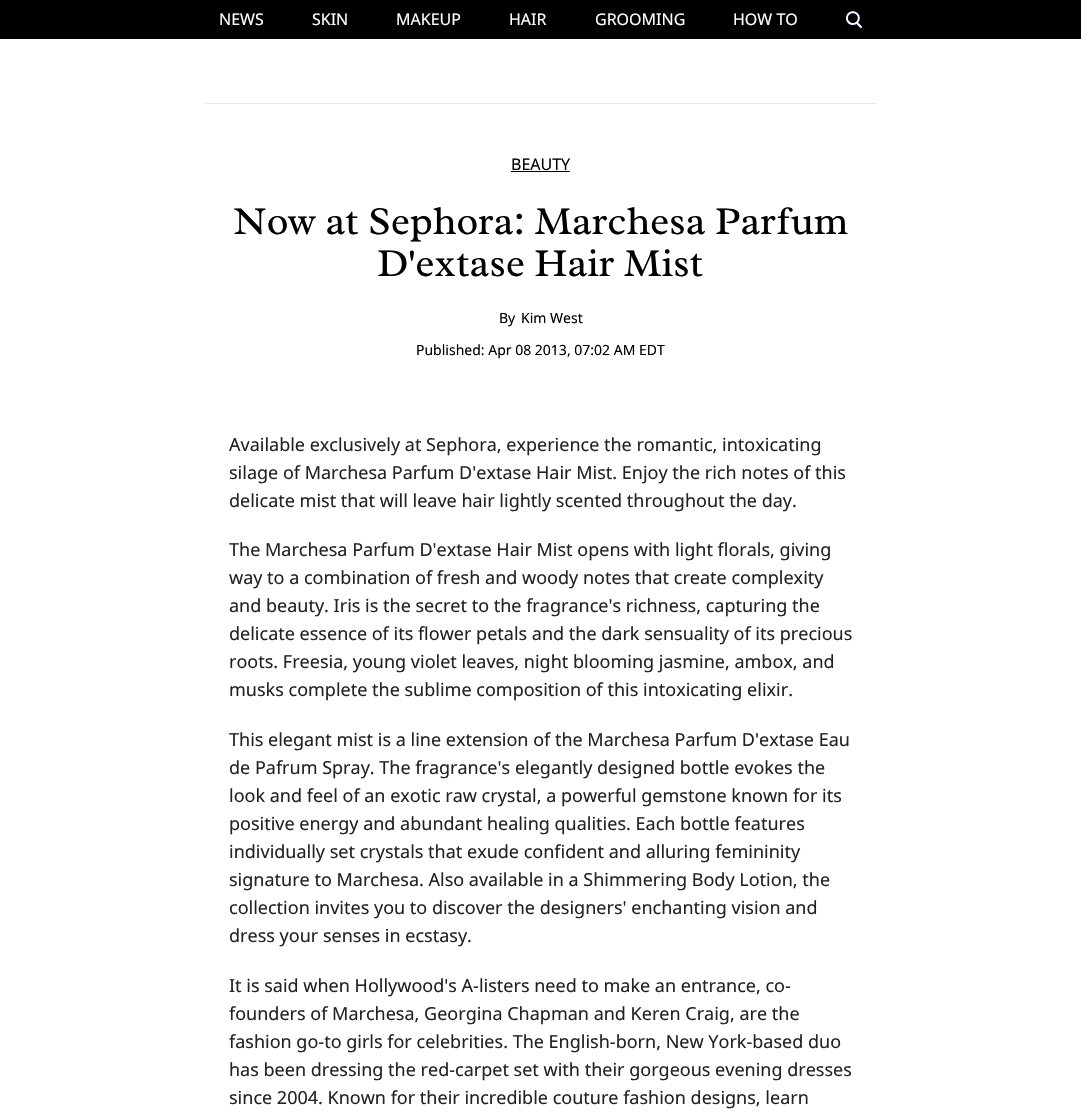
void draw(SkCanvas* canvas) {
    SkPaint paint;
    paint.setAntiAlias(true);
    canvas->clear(0xFFFFFFFF);
    paint.setColor(0xFF000000);
    canvas->drawRect(SkRect::MakeXYWH(0, 0, 1081, 39), paint);
    SkFont font1(fontMgr->matchFamilyStyle("Noto Sans", SkFontStyle::Normal()), 16);
    font1.setSubpixel(true);
    paint.setColor(0xFFFFFFFF);
    canvas->drawString("NEWS", 219, 25, font1, paint);
    canvas->drawString("SKIN", 312, 25, font1, paint);
    canvas->drawString("MAKEUP", 396, 25, font1, paint);
    canvas->drawString("HAIR", 509, 25, font1, paint);
    canvas->drawString("GROOMING", 595, 25, font1, paint);
    canvas->drawString("HOW TO", 733, 25, font1, paint);
    canvas->drawImageRect(SkImages::DeferredFromEncodedData(SkData::MakeFromFileName("img1.png")), SkRect::MakeXYWH(846, 11, 16, 17), SkSamplingOptions());
    paint.setColor(0xFFE5E7EB);
    canvas->drawRect(SkRect::MakeXYWH(205, 103, 672, 1), paint);
    paint.setColor(0xFF000000);
    canvas->drawString("BEAUTY", 511, 170, font1, paint);
    canvas->drawRect(SkRect::MakeXYWH(511, 171, 59, 1), paint);
    SkFont font2(fontMgr->matchFamilyStyle("Radley", SkFontStyle::Normal()), 40);
    font2.setSubpixel(true);
    canvas->drawString("Now at Sephora: Marchesa Parfum", 233, 234, font2, paint);
    canvas->drawString("D'extase Hair Mist", 377, 276, font2, paint);
    SkFont font3(fontMgr->matchFamilyStyle("Noto Sans", SkFontStyle::Normal()), 14);
    font3.setSubpixel(true);
    canvas->drawString("By", 499, 323, font3, paint);
    canvas->drawString("Kim West", 521, 323, font3, paint);
    canvas->drawString("Published: Apr 08 2013, 07:02 AM EDT", 416, 355, font3, paint);
    SkFont font4(fontMgr->matchFamilyStyle("Noto Sans", SkFontStyle::Normal()), 18);
    font4.setSubpixel(true);
    paint.setColor(0xFF222222);
    canvas->drawString("Available exclusively at Sephora, experience the romantic, intoxicating", 229, 451, font4, paint);
    canvas->drawString("silage of Marchesa Parfum D'extase Hair Mist. Enjoy the rich notes of this", 229, 479, font4, paint);
    canvas->drawString("delicate mist that will leave hair lightly scented throughout the day.", 229, 507, font4, paint);
    canvas->drawString("The Marchesa Parfum D'extase Hair Mist opens with light florals, giving", 229, 556, font4, paint);
    canvas->drawString("way to a combination of fresh and woody notes that create complexity", 229, 584, font4, paint);
    canvas->drawString("and beauty. Iris is the secret to the fragrance's richness, capturing the", 229, 612, font4, paint);
    canvas->drawString("delicate essence of its flower petals and the dark sensuality of its precious", 229, 640, font4, paint);
    canvas->drawString("roots. Freesia, young violet leaves, night blooming jasmine, ambox, and", 229, 668, font4, paint);
    canvas->drawString("musks complete the sublime composition of this intoxicating elixir.", 229, 696, font4, paint);
    canvas->drawString("This elegant mist is a line extension of the Marchesa Parfum D'extase Eau", 229, 746, font4, paint);
    canvas->drawString("de Pafrum Spray. The fragrance's elegantly designed bottle evokes the", 229, 774, font4, paint);
    canvas->drawString("look and feel of an exotic raw crystal, a powerful gemstone known for its", 229, 802, font4, paint);
    canvas->drawString("positive energy and abundant healing qualities. Each bottle features", 229, 830, font4, paint);
    canvas->drawString("individually set crystals that exude confident and alluring femininity", 229, 858, font4, paint);
    canvas->drawString("signature to Marchesa. Also available in a Shimmering Body Lotion, the", 229, 886, font4, paint);
    canvas->drawString("collection invites you to discover the designers' enchanting vision and", 229, 914, font4, paint);
    canvas->drawString("dress your senses in ecstasy.", 229, 942, font4, paint);
    canvas->drawString("It is said when Hollywood's A-listers need to make an entrance, co-", 229, 992, font4, paint);
    canvas->drawString("founders of Marchesa, Georgina Chapman and Keren Craig, are the", 229, 1020, font4, paint);
    canvas->drawString("fashion go-to girls for celebrities. The English-born, New York-based duo", 229, 1048, font4, paint);
    canvas->drawString("has been dressing the red-carpet set with their gorgeous evening dresses", 229, 1076, font4, paint);
    canvas->drawString("since 2004. Known for their incredible couture fashion designs, learn", 229, 1104, font4, paint);
}
